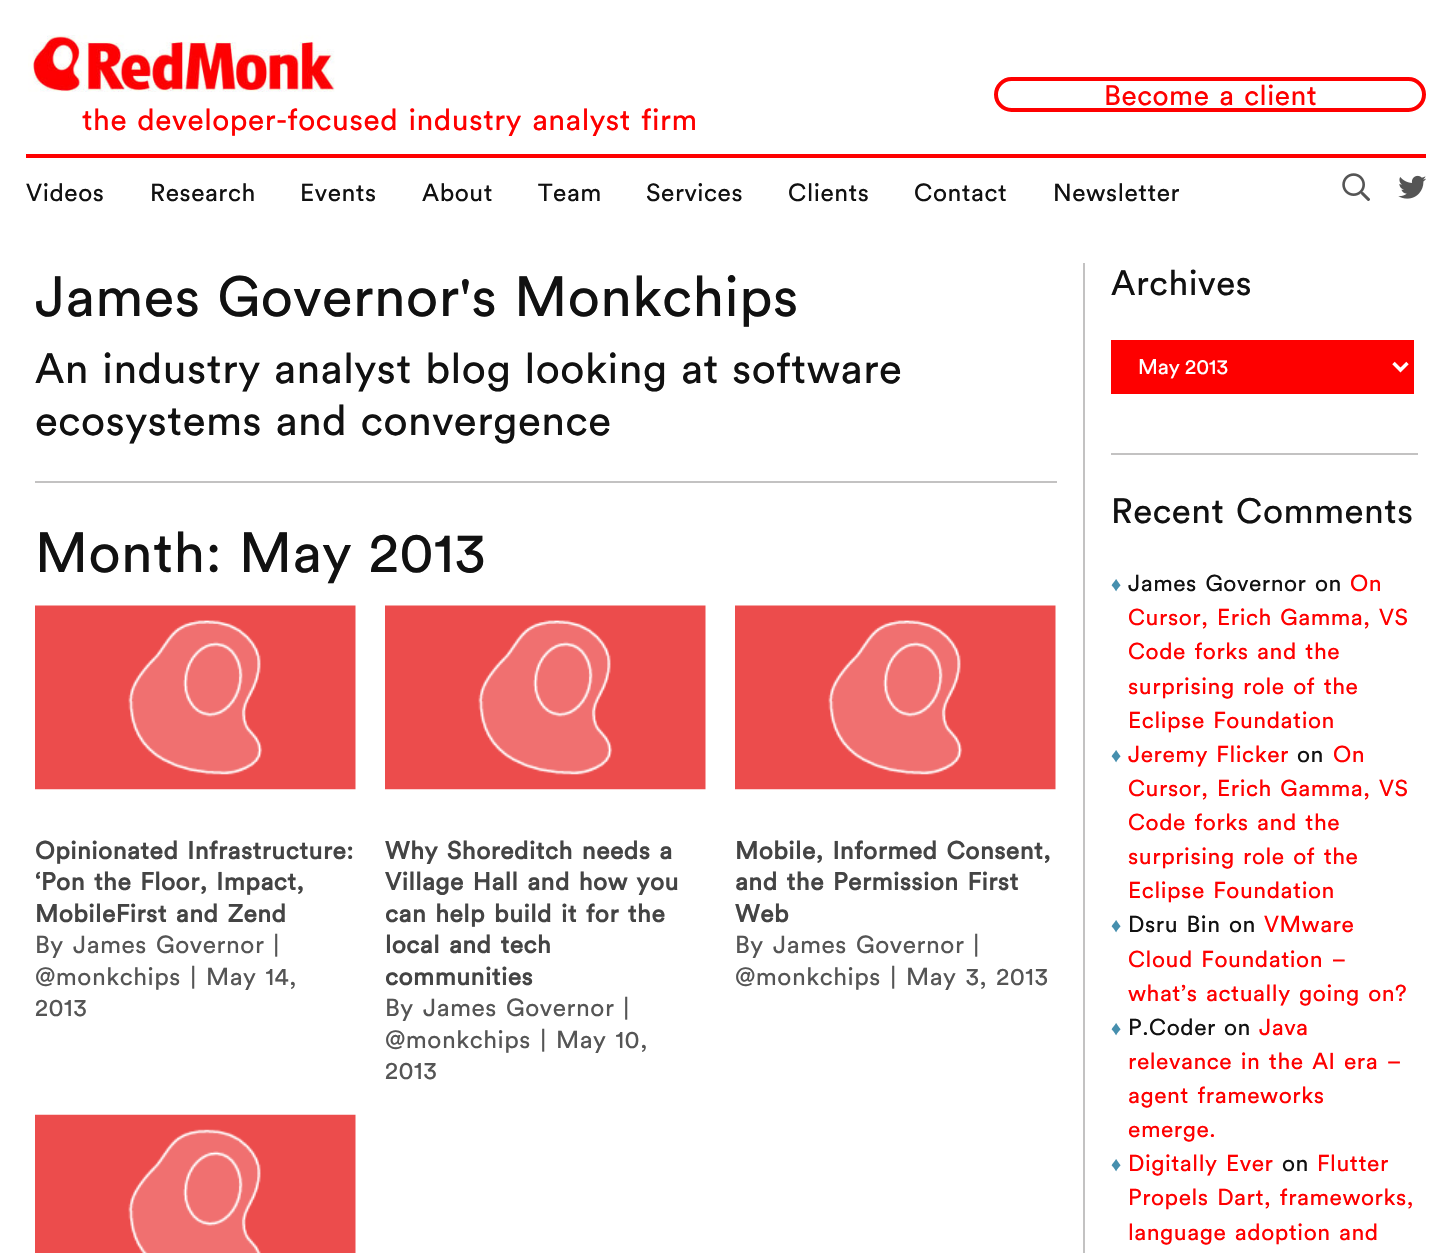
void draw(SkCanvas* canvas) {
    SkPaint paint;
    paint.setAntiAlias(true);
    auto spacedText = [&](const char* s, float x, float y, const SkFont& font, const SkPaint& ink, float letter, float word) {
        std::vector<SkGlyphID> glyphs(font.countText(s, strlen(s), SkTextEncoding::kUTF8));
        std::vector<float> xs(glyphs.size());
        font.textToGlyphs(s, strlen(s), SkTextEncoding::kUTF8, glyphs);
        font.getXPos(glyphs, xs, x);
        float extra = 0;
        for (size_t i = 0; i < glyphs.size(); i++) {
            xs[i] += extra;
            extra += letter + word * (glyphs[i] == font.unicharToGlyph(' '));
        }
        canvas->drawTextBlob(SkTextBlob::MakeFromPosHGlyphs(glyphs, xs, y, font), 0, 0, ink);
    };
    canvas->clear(0xFFFFFFFF);
    paint.setStyle(SkPaint::kStroke_Style);
    paint.setStrokeWidth(4);
    paint.setColor(0xFFFE0000);
    canvas->drawRoundRect(SkRect::MakeXYWH(996, 79, 428, 31), 15.5f, 15.5f, paint);
    SkFont font1(fontMgr->matchFamilyStyle("Circular", SkFontStyle::Normal()), 28);
    font1.setSubpixel(true);
    paint.setStyle(SkPaint::kFill_Style);
    spacedText("Become a client", 1104, 105, font1, paint, 0.55f, 2.25f);
    canvas->drawImageRect(SkImages::DeferredFromEncodedData(SkData::MakeFromFileName("img1.png")), SkRect::MakeXYWH(28, 35, 307, 57), SkSamplingOptions());
    SkFont font2(fontMgr->matchFamilyStyle("Circular", SkFontStyle::Normal()), 29.75f);
    font2.setSubpixel(true);
    spacedText("the developer-focused industry analyst firm", 82, 130, font2, paint, 0.55f, 2.25f);
    canvas->drawRect(SkRect::MakeXYWH(26, 154, 1400, 4), paint);
    SkFont font3(fontMgr->matchFamilyStyle("Circular", SkFontStyle::Normal()), 24.5f);
    font3.setSubpixel(true);
    paint.setColor(0xFF111111);
    spacedText("Videos", 26, 201, font3, paint, 0.55f, 0);
    spacedText("Research", 150, 201, font3, paint, 0.55f, 0);
    spacedText("Events", 300, 201, font3, paint, 0.55f, 0);
    spacedText("About", 422, 201, font3, paint, 0.55f, 0);
    spacedText("Team", 538, 201, font3, paint, 0.55f, 0);
    spacedText("Services", 646, 201, font3, paint, 0.55f, 0);
    spacedText("Clients", 788, 201, font3, paint, 0.55f, 0);
    spacedText("Contact", 914, 201, font3, paint, 0.55f, 0);
    spacedText("Newsletter", 1053, 201, font3, paint, 0.55f, 0);
    canvas->drawImageRect(SkImages::DeferredFromEncodedData(SkData::MakeFromFileName("img2.png")), SkRect::MakeXYWH(1342, 173, 28, 28), SkSamplingOptions());
    canvas->drawImageRect(SkImages::DeferredFromEncodedData(SkData::MakeFromFileName("img3.png")), SkRect::MakeXYWH(1398, 175, 28, 24), SkSamplingOptions());
    paint.setColor(0xFFC3C2C2);
    canvas->drawRect(SkRect::MakeXYWH(1083, 263, 2, 990), paint);
    canvas->drawRect(SkRect::MakeXYWH(35, 481, 1022, 2), paint);
    SkFont font4(fontMgr->matchFamilyStyle("Circular", SkFontStyle::Normal()), 56);
    font4.setSubpixel(true);
    paint.setColor(0xFF111111);
    spacedText("James Governor's Monkchips", 35, 316, font4, paint, 0.55f, 2.25f);
    SkFont font5(fontMgr->matchFamilyStyle("Circular", SkFontStyle::Normal()), 42);
    font5.setSubpixel(true);
    spacedText("An industry analyst blog looking at software", 35, 383, font5, paint, 0.55f, 2.25f);
    spacedText("ecosystems and convergence", 35, 435, font5, paint, 0.55f, 2.25f);
    spacedText("Month:", 35, 572, font4, paint, 0.55f, 0);
    spacedText("May 2013", 239, 572, font4, paint, 0.55f, 2.25f);
    canvas->drawImageRect(SkImages::DeferredFromEncodedData(SkData::MakeFromFileName("img4.png")), SkRect::MakeXYWH(35, 605, 321, 185), SkSamplingOptions());
    SkFont font6(fontMgr->matchFamilyStyle("Circular", SkFontStyle::Bold()), 24.5f);
    font6.setSubpixel(true);
    paint.setColor(0xFF444444);
    spacedText("Opinionated Infrastructure:", 35, 859, font6, paint, 0.55f, 2.25f);
    spacedText("‘Pon the Floor, Impact,", 35, 890, font6, paint, 0.55f, 2.25f);
    spacedText("MobileFirst and Zend", 35, 922, font6, paint, 0.55f, 2.25f);
    paint.setColor(0xFF555555);
    spacedText("By", 35, 953, font3, paint, 0.55f, 0);
    spacedText("James Governor", 73, 953, font3, paint, 0.55f, 2.25f);
    spacedText("|", 273, 953, font3, paint, 0.55f, 0);
    spacedText("@monkchips", 35, 985, font3, paint, 0.55f, 0);
    spacedText("|", 190, 985, font3, paint, 0.55f, 0);
    spacedText("May 14,", 206, 985, font3, paint, 0.55f, 2.25f);
    spacedText("2013", 35, 1016, font3, paint, 0.55f, 0);
    canvas->drawImageRect(SkImages::DeferredFromEncodedData(SkData::MakeFromFileName("img4.png")), SkRect::MakeXYWH(385, 605, 321, 185), SkSamplingOptions());
    paint.setColor(0xFF444444);
    spacedText("Why Shoreditch needs a", 385, 859, font6, paint, 0.55f, 2.25f);
    spacedText("Village Hall and how you", 385, 890, font6, paint, 0.55f, 2.25f);
    spacedText("can help build it for the", 385, 922, font6, paint, 0.55f, 2.25f);
    spacedText("local and tech", 385, 953, font6, paint, 0.55f, 2.25f);
    spacedText("communities", 385, 985, font6, paint, 0.55f, 0);
    paint.setColor(0xFF555555);
    spacedText("By", 385, 1016, font3, paint, 0.55f, 0);
    spacedText("James Governor", 423, 1016, font3, paint, 0.55f, 2.25f);
    spacedText("|", 623, 1016, font3, paint, 0.55f, 0);
    spacedText("@monkchips", 385, 1048, font3, paint, 0.55f, 0);
    spacedText("|", 540, 1048, font3, paint, 0.55f, 0);
    spacedText("May 10,", 556, 1048, font3, paint, 0.55f, 2.25f);
    spacedText("2013", 385, 1079, font3, paint, 0.55f, 0);
    canvas->drawImageRect(SkImages::DeferredFromEncodedData(SkData::MakeFromFileName("img4.png")), SkRect::MakeXYWH(735, 605, 321, 185), SkSamplingOptions());
    paint.setColor(0xFF444444);
    spacedText("Mobile, Informed Consent,", 735, 859, font6, paint, 0.55f, 2.25f);
    spacedText("and the Permission First", 735, 890, font6, paint, 0.55f, 2.25f);
    spacedText("Web", 735, 922, font6, paint, 0.55f, 0);
    paint.setColor(0xFF555555);
    spacedText("By", 735, 953, font3, paint, 0.55f, 0);
    spacedText("James Governor", 773, 953, font3, paint, 0.55f, 2.25f);
    spacedText("|", 973, 953, font3, paint, 0.55f, 0);
    spacedText("@monkchips", 735, 985, font3, paint, 0.55f, 0);
    spacedText("|", 890, 985, font3, paint, 0.55f, 0);
    spacedText("May 3, 2013", 906, 985, font3, paint, 0.55f, 2.25f);
    canvas->drawImageRect(SkImages::DeferredFromEncodedData(SkData::MakeFromFileName("img5.png")), SkRect::MakeXYWH(35, 1114, 321, 139), SkSamplingOptions());
    paint.setColor(0xFFC3C2C2);
    canvas->drawRect(SkRect::MakeXYWH(1111, 453, 307, 2), paint);
    SkFont font7(fontMgr->matchFamilyStyle("Circular", SkFontStyle::Normal()), 35);
    font7.setSubpixel(true);
    paint.setColor(0xFF111111);
    spacedText("Archives", 1111, 295, font7, paint, 0.55f, 0);
    paint.setColor(0xFFFE0000);
    canvas->drawRect(SkRect::MakeXYWH(1111, 340, 303, 54), paint);
    paint.setStyle(SkPaint::kStroke_Style);
    paint.setStrokeWidth(3.5f);
    paint.setColor(0xFFFFFFFF);
    canvas->drawPath(SkPathBuilder().moveTo(1393.5f, 363).lineTo(1400.5f, 370).lineTo(1407.5f, 363).detach(), paint);
    SkFont font8(fontMgr->matchFamilyStyle("Circular", SkFontStyle::Normal()), 21);
    font8.setSubpixel(true);
    paint.setStyle(SkPaint::kFill_Style);
    canvas->drawString("May 2013", 1138, 374, font8, paint);
    paint.setColor(0xFF111111);
    spacedText("Recent Comments", 1111, 523, font7, paint, 0.55f, 2.25f);
    SkFont font9(fontMgr->matchFamilyStyle("Liberation Sans", SkFontStyle::Normal()), 20);
    font9.setSubpixel(true);
    paint.setColor(0xFF468FAE);
    spacedText("♦", 1111, 591, font9, paint, 0.55f, 0);
    SkFont font10(fontMgr->matchFamilyStyle("Circular", SkFontStyle::Normal()), 22.75f);
    font10.setSubpixel(true);
    paint.setColor(0xFF111111);
    spacedText("James Governor", 1128, 591, font10, paint, 0.55f, 2.25f);
    spacedText("on", 1315, 591, font10, paint, 0.55f, 0);
    paint.setColor(0xFFFE0000);
    spacedText("On", 1350, 591, font10, paint, 0.55f, 0);
    spacedText("Cursor, Erich Gamma, VS", 1128, 625, font10, paint, 0.55f, 2.25f);
    spacedText("Code forks and the", 1128, 659, font10, paint, 0.55f, 2.25f);
    spacedText("surprising role of the", 1128, 694, font10, paint, 0.55f, 2.25f);
    spacedText("Eclipse Foundation", 1128, 728, font10, paint, 0.55f, 2.25f);
    paint.setColor(0xFF468FAE);
    spacedText("♦", 1111, 762, font9, paint, 0.55f, 0);
    paint.setColor(0xFFFE0000);
    spacedText("Jeremy Flicker", 1128, 762, font10, paint, 0.55f, 2.25f);
    paint.setColor(0xFF111111);
    spacedText("on", 1297, 762, font10, paint, 0.55f, 0);
    paint.setColor(0xFFFE0000);
    spacedText("On", 1333, 762, font10, paint, 0.55f, 0);
    spacedText("Cursor, Erich Gamma, VS", 1128, 796, font10, paint, 0.55f, 2.25f);
    spacedText("Code forks and the", 1128, 830, font10, paint, 0.55f, 2.25f);
    spacedText("surprising role of the", 1128, 864, font10, paint, 0.55f, 2.25f);
    spacedText("Eclipse Foundation", 1128, 898, font10, paint, 0.55f, 2.25f);
    paint.setColor(0xFF468FAE);
    spacedText("♦", 1111, 932, font9, paint, 0.55f, 0);
    paint.setColor(0xFF111111);
    spacedText("Dsru Bin", 1128, 932, font10, paint, 0.55f, 2.25f);
    spacedText("on", 1229, 932, font10, paint, 0.55f, 0);
    paint.setColor(0xFFFE0000);
    spacedText("VMware", 1264, 932, font10, paint, 0.55f, 0);
    spacedText("Cloud Foundation –", 1128, 967, font10, paint, 0.55f, 2.25f);
    spacedText("what’s actually going on?", 1128, 1001, font10, paint, 0.55f, 2.25f);
    paint.setColor(0xFF468FAE);
    spacedText("♦", 1111, 1035, font9, paint, 0.55f, 0);
    paint.setColor(0xFF111111);
    spacedText("P.Coder", 1128, 1035, font10, paint, 0.55f, 0);
    spacedText("on", 1224, 1035, font10, paint, 0.55f, 0);
    paint.setColor(0xFFFE0000);
    spacedText("Java", 1259, 1035, font10, paint, 0.55f, 0);
    spacedText("relevance in the AI era –", 1128, 1069, font10, paint, 0.55f, 2.25f);
    spacedText("agent frameworks", 1128, 1103, font10, paint, 0.55f, 2.25f);
    spacedText("emerge.", 1128, 1137, font10, paint, 0.55f, 0);
    paint.setColor(0xFF468FAE);
    spacedText("♦", 1111, 1171, font9, paint, 0.55f, 0);
    paint.setColor(0xFFFE0000);
    spacedText("Digitally Ever", 1128, 1171, font10, paint, 0.55f, 2.25f);
    paint.setColor(0xFF111111);
    spacedText("on", 1282, 1171, font10, paint, 0.55f, 0);
    paint.setColor(0xFFFE0000);
    spacedText("Flutter", 1317, 1171, font10, paint, 0.55f, 0);
    spacedText("Propels Dart, frameworks,", 1128, 1205, font10, paint, 0.55f, 2.25f);
    spacedText("language adoption and", 1128, 1240, font10, paint, 0.55f, 2.25f);
}
